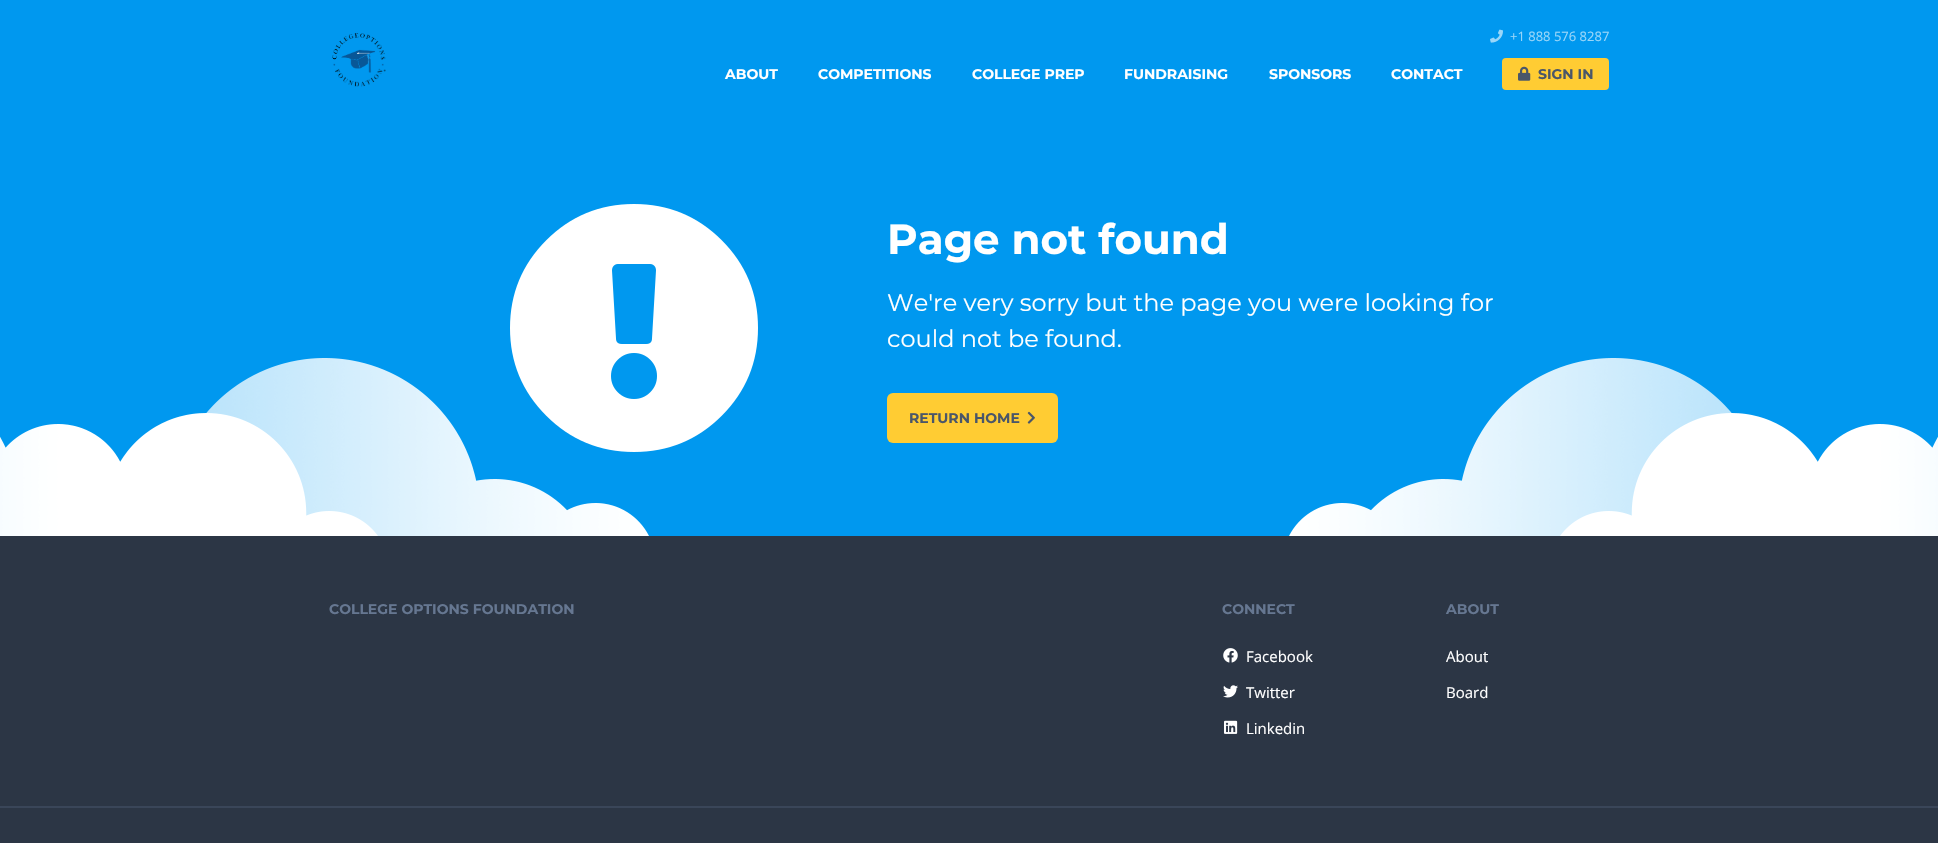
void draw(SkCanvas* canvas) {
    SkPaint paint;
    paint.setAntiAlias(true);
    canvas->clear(0xFF2C3645);
    paint.setColor(0xFF0098EF);
    canvas->drawRect(SkRect::MakeXYWH(0, 0, 1938, 536), paint);
    canvas->drawImageRect(SkImages::DeferredFromEncodedData(SkData::MakeFromFileName("img1.png")), SkRect::MakeXYWH(332, 33, 54, 54), SkSamplingOptions());
    canvas->drawImageRect(SkImages::DeferredFromEncodedData(SkData::MakeFromFileName("img2.png")), SkRect::MakeXYWH(1490, 29, 13, 14), SkSamplingOptions());
    SkFont font1(fontMgr->matchFamilyStyle("Open Sans", SkFontStyle::Normal()), 13);
    font1.setSubpixel(true);
    paint.setColor(0xFF99D6F9);
    canvas->drawString("+1 888 576 8287", 1510, 41, font1, paint);
    SkFont font2(fontMgr->matchFamilyStyle("Montserrat", SkFontStyle::Bold()), 14);
    font2.setSubpixel(true);
    paint.setColor(0xFFFFFFFF);
    canvas->drawString("ABOUT", 725, 79, font2, paint);
    canvas->drawString("COMPETITIONS", 818, 79, font2, paint);
    canvas->drawString("COLLEGE PREP", 972, 79, font2, paint);
    canvas->drawString("FUNDRAISING", 1124, 79, font2, paint);
    canvas->drawString("SPONSORS", 1269, 79, font2, paint);
    canvas->drawString("CONTACT", 1391, 79, font2, paint);
    paint.setColor(0xFFFFCC33);
    canvas->drawRoundRect(SkRect::MakeXYWH(1502, 58, 107, 32), 4, 4, paint);
    canvas->drawImageRect(SkImages::DeferredFromEncodedData(SkData::MakeFromFileName("img3.png")), SkRect::MakeXYWH(1518, 66, 13, 15), SkSamplingOptions());
    paint.setColor(0xFF4A5669);
    canvas->drawString("SIGN IN", 1538, 79, font2, paint);
    canvas->drawImageRect(SkImages::DeferredFromEncodedData(SkData::MakeFromFileName("img6.png")), SkRect::MakeXYWH(0, 358, 649, 178), SkSamplingOptions());
    canvas->drawImageRect(SkImages::DeferredFromEncodedData(SkData::MakeFromFileName("img4.png")), SkRect::MakeXYWH(510, 204, 248, 248), SkSamplingOptions());
    SkFont font3(fontMgr->matchFamilyStyle("Montserrat", SkFontStyle::Bold()), 42);
    font3.setSubpixel(true);
    paint.setColor(0xFFFFFFFF);
    canvas->drawString("Page not found", 887, 254, font3, paint);
    SkFont font4(fontMgr->matchFamilyStyle("Montserrat", SkFontStyle::Normal()), 24);
    font4.setSubpixel(true);
    canvas->drawString("We're very sorry but the page you were looking for", 887, 311, font4, paint);
    canvas->drawString("could not be found.", 887, 347, font4, paint);
    paint.setColor(0xFFFFCC33);
    canvas->drawRoundRect(SkRect::MakeXYWH(887, 393, 171, 50), 6, 6, paint);
    paint.setColor(0xFF4A5669);
    canvas->drawString("RETURN HOME", 909, 423, font2, paint);
    canvas->drawImageRect(SkImages::DeferredFromEncodedData(SkData::MakeFromFileName("img5.png")), SkRect::MakeXYWH(1027, 411, 8, 13), SkSamplingOptions());
    canvas->drawImageRect(SkImages::DeferredFromEncodedData(SkData::MakeFromFileName("img7.png")), SkRect::MakeXYWH(1289, 358, 649, 178), SkSamplingOptions());
    paint.setColor(0xFF667791);
    canvas->drawString("COLLEGE OPTIONS FOUNDATION", 329, 614, font2, paint);
    canvas->drawString("CONNECT", 1222, 614, font2, paint);
    canvas->drawImageRect(SkImages::DeferredFromEncodedData(SkData::MakeFromFileName("img8.png")), SkRect::MakeXYWH(1223, 648, 15, 15), SkSamplingOptions());
    SkFont font5(fontMgr->matchFamilyStyle("Open Sans", SkFontStyle::Normal()), 15);
    font5.setSubpixel(true);
    paint.setColor(0xFFFFFFFF);
    canvas->drawString("Facebook", 1246, 662, font5, paint);
    canvas->drawImageRect(SkImages::DeferredFromEncodedData(SkData::MakeFromFileName("img9.png")), SkRect::MakeXYWH(1223, 685, 15, 13), SkSamplingOptions());
    canvas->drawString("Twitter", 1246, 698, font5, paint);
    canvas->drawImageRect(SkImages::DeferredFromEncodedData(SkData::MakeFromFileName("img10.png")), SkRect::MakeXYWH(1224, 720, 14, 14), SkSamplingOptions());
    canvas->drawString("Linkedin", 1246, 734, font5, paint);
    paint.setColor(0xFF667791);
    canvas->drawString("ABOUT", 1446, 614, font2, paint);
    paint.setColor(0xFFFFFFFF);
    canvas->drawString("About", 1446, 662, font5, paint);
    canvas->drawString("Board", 1446, 698, font5, paint);
    paint.setColor(0xFF3A4659);
    canvas->drawRect(SkRect::MakeXYWH(0, 806, 1938, 2), paint);
}
